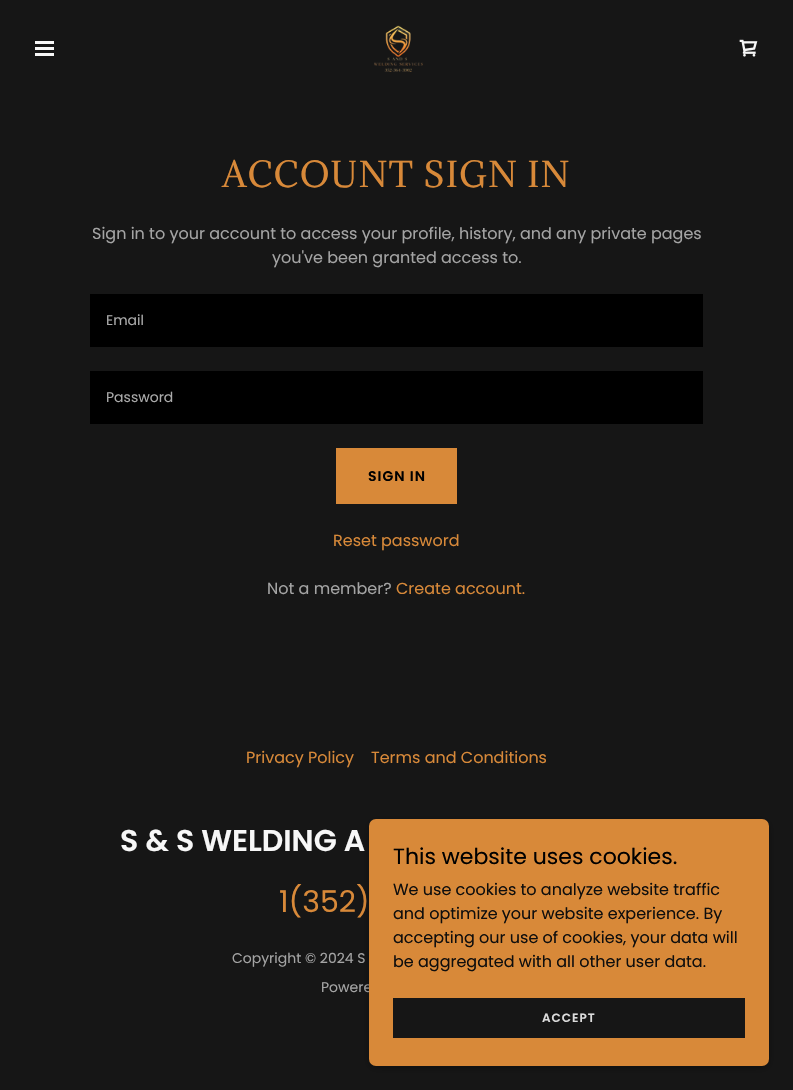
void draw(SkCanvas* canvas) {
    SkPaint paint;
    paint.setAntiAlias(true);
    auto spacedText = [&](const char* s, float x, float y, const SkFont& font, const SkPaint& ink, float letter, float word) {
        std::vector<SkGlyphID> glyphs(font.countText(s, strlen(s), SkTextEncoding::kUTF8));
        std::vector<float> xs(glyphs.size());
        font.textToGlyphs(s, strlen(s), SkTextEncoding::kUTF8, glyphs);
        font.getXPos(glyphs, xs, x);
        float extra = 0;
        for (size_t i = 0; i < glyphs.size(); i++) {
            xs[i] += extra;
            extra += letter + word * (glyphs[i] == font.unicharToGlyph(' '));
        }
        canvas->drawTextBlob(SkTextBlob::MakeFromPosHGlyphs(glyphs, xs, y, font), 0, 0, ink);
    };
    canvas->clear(0xFF161616);
    paint.setColor(0xFFF7F7F7);
    canvas->drawRect(SkRect::MakeXYWH(35, 41, 19, 3), paint);
    canvas->drawRect(SkRect::MakeXYWH(35, 47, 19, 3), paint);
    canvas->drawRect(SkRect::MakeXYWH(35, 53, 19, 3), paint);
    canvas->drawImageRect(SkImages::DeferredFromEncodedData(SkData::MakeFromFileName("img1.png")), SkRect::MakeXYWH(374, 25, 49, 47), SkSamplingOptions());
    canvas->drawImageRect(SkImages::DeferredFromEncodedData(SkData::MakeFromFileName("img2.png")), SkRect::MakeXYWH(739, 39, 19, 18), SkSamplingOptions());
    SkFont font1(fontMgr->matchFamilyStyle("Adamina", SkFontStyle::Normal()), 33);
    font1.setSubpixel(true);
    paint.setColor(0xFFD88939);
    spacedText("ACCOUNT SIGN IN", 222, 187, font1, paint, 1, 0);
    SkFont font2(fontMgr->matchFamilyStyle("Poppins", SkFontStyle::Normal()), 16);
    font2.setSubpixel(true);
    paint.setColor(0xFFA4A4A4);
    canvas->drawString("Sign in to your account to access your profile, history, and any private pages", 92, 239, font2, paint);
    canvas->drawString("you've been granted access to.", 272, 263, font2, paint);
    paint.setColor(0xFF000000);
    canvas->drawRect(SkRect::MakeXYWH(90, 294, 613, 53), paint);
    SkFont font3(fontMgr->matchFamilyStyle("Poppins", SkFontStyle::Normal()), 14);
    font3.setSubpixel(true);
    paint.setColor(0xFFABABAB);
    canvas->drawString("Email", 106, 325, font3, paint);
    paint.setColor(0xFF000000);
    canvas->drawRect(SkRect::MakeXYWH(90, 371, 613, 53), paint);
    paint.setColor(0xFFABABAB);
    canvas->drawString("Password", 106, 402, font3, paint);
    paint.setColor(0xFFD88939);
    canvas->drawRect(SkRect::MakeXYWH(336, 448, 121, 56), paint);
    SkFont font4(fontMgr->matchFamilyStyle("Poppins", SkFontStyle(600, SkFontStyle::kNormal_Width, SkFontStyle::kUpright_Slant)), 14);
    font4.setSubpixel(true);
    paint.setColor(0xFF000000);
    spacedText("SIGN IN", 368, 481, font4, paint, 1, 0);
    paint.setColor(0xFFD88939);
    canvas->drawString("Reset password", 333, 546, font2, paint);
    paint.setColor(0xFFA4A4A4);
    canvas->drawString("Not a member?", 267, 594, font2, paint);
    paint.setColor(0xFFD88939);
    canvas->drawString("Create account.", 396, 594, font2, paint);
    canvas->drawString("Privacy Policy", 246, 763, font2, paint);
    canvas->drawString("Terms and Conditions", 371, 763, font2, paint);
    SkFont font5(fontMgr->matchFamilyStyle("Poppins", SkFontStyle(600, SkFontStyle::kNormal_Width, SkFontStyle::kUpright_Slant)), 30);
    font5.setSubpixel(true);
    paint.setColor(0xFFF7F7F7);
    canvas->drawString("S & S WELDING A", 120, 851, font5, paint);
    SkFont font6(fontMgr->matchFamilyStyle("Poppins", SkFontStyle::Normal()), 30);
    font6.setSubpixel(true);
    paint.setColor(0xFFD88939);
    canvas->drawString("1(352)", 279, 912, font6, paint);
    paint.setColor(0xFFA4A4A4);
    canvas->drawString("Copyright © 2024 S", 232, 963, font3, paint);
    canvas->drawString("Powere", 321, 992, font3, paint);
    paint.setColor(0x4D000000);
    paint.setMaskFilter(SkMaskFilter::MakeBlur(kNormal_SkBlurStyle, 3));
    canvas->drawRoundRect(SkRect::MakeXYWH(369, 821, 400, 247), 7, 7, paint);
    paint.setMaskFilter(nullptr);
    paint.setColor(0xFFD88939);
    canvas->drawRoundRect(SkRect::MakeXYWH(369, 819, 400, 247), 7, 7, paint);
    SkFont font7(fontMgr->matchFamilyStyle("Poppins", SkFontStyle::Normal()), 22);
    font7.setSubpixel(true);
    paint.setColor(0xFF000000);
    canvas->drawString("This website uses cookies.", 393, 864, font7, paint);
    paint.setColor(0xFF0F0E0D);
    canvas->drawString("We use cookies to analyze website traffic", 393, 895, font2, paint);
    canvas->drawString("and optimize your website experience. By", 393, 919, font2, paint);
    canvas->drawString("accepting our use of cookies, your data will", 393, 943, font2, paint);
    canvas->drawString("be aggregated with all other user data.", 393, 967, font2, paint);
    paint.setColor(0xFF161616);
    canvas->drawRect(SkRect::MakeXYWH(393, 998, 352, 40), paint);
    SkFont font8(fontMgr->matchFamilyStyle("Poppins", SkFontStyle(600, SkFontStyle::kNormal_Width, SkFontStyle::kUpright_Slant)), 12);
    font8.setSubpixel(true);
    paint.setColor(0xFFDBDBDB);
    spacedText("ACCEPT", 542, 1022, font8, paint, 1, 0);
}
